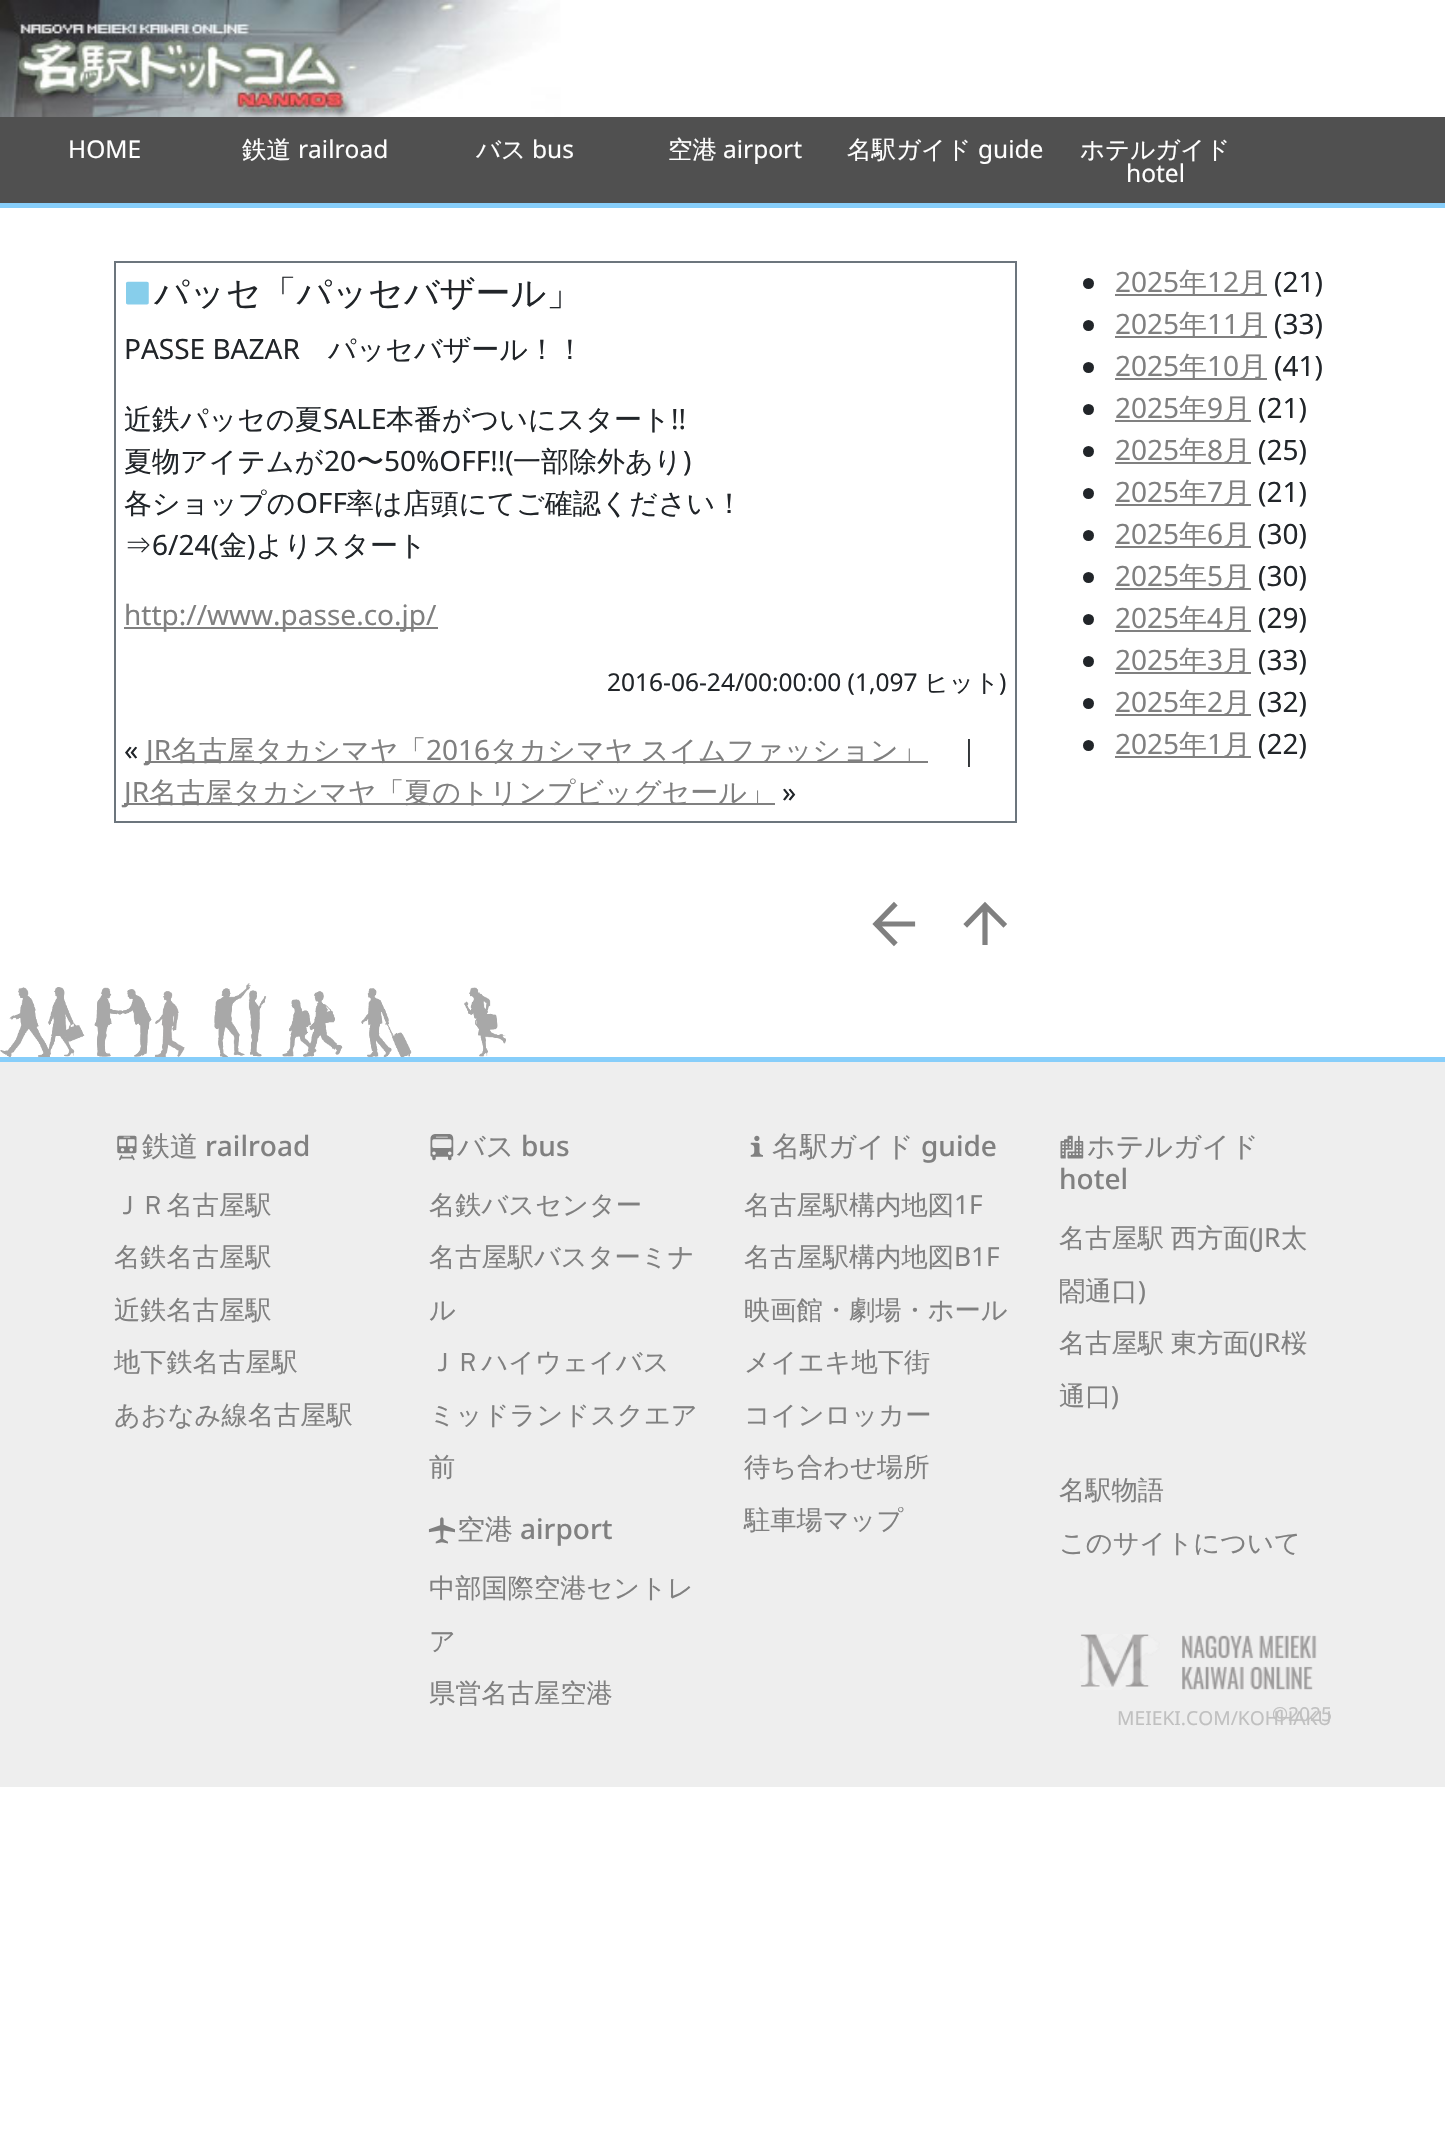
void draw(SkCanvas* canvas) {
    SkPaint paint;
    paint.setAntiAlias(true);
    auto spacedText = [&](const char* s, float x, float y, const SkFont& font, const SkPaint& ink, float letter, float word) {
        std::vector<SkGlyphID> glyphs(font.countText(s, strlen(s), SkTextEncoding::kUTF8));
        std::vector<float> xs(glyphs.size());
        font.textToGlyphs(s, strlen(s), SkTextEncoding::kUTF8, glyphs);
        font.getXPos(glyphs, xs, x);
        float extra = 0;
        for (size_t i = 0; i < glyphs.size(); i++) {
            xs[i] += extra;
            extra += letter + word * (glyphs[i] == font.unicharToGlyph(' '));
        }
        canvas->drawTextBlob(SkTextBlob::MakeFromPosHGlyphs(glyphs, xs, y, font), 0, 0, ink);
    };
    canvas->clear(0xFFFFFFFF);
    canvas->drawImageRect(SkImages::DeferredFromEncodedData(SkData::MakeFromFileName("img1.png")), SkRect::MakeXYWH(0, 0, 594, 117), SkSamplingOptions());
    paint.setColor(0xFF505050);
    canvas->drawRect(SkRect::MakeXYWH(0, 117, 1445, 86), paint);
    SkFont font1(fontMgr->matchFamilyStyle("Noto Sans", SkFontStyle::Normal()), 24.5f);
    font1.setSubpixel(true);
    paint.setColor(0xFFFFFFFF);
    canvas->drawString("HOME", 68, 158, font1, paint);
    SkFont font2(fontMgr->matchFamilyStyle("WenQuanYi Zen Hei", SkFontStyle(500, SkFontStyle::kNormal_Width, SkFontStyle::kUpright_Slant)), 24.5f);
    font2.setSubpixel(true);
    canvas->drawString("鉄道", 242, 158, font2, paint);
    canvas->drawString("railroad", 298, 158, font1, paint);
    canvas->drawString("バス", 476, 158, font2, paint);
    canvas->drawString("bus", 532, 158, font1, paint);
    canvas->drawString("空港", 668, 158, font2, paint);
    canvas->drawString("airport", 723, 158, font1, paint);
    canvas->drawString("名駅ガイド", 847, 158, font2, paint);
    canvas->drawString("guide", 978, 158, font1, paint);
    canvas->drawString("ホテルガイド", 1080, 158, font2, paint);
    canvas->drawString("hotel", 1126, 182, font1, paint);
    paint.setColor(0xFF87CEFA);
    canvas->drawRect(SkRect::MakeXYWH(0, 203, 1445, 5), paint);
    paint.setStyle(SkPaint::kStroke_Style);
    paint.setStrokeWidth(2);
    paint.setColor(0xFF6C757D);
    canvas->drawRect(SkRect::MakeXYWH(115, 262, 901, 560), paint);
    canvas->drawImageRect(SkImages::DeferredFromEncodedData(SkData::MakeFromFileName("img2.png")), SkRect::MakeXYWH(125, 281, 24, 24), SkSamplingOptions());
    SkFont font3(fontMgr->matchFamilyStyle("WenQuanYi Zen Hei", SkFontStyle(500, SkFontStyle::kNormal_Width, SkFontStyle::kUpright_Slant)), 35);
    font3.setSubpixel(true);
    paint.setStyle(SkPaint::kFill_Style);
    paint.setColor(0xFF212529);
    canvas->drawString("パッセ「パッセバザール」", 154, 305, font3, paint);
    SkFont font4(fontMgr->matchFamilyStyle("Noto Sans", SkFontStyle::Normal()), 28);
    font4.setSubpixel(true);
    canvas->drawString("PASSE BAZAR", 124, 359, font4, paint);
    SkFont font5(fontMgr->matchFamilyStyle("WenQuanYi Zen Hei", SkFontStyle(500, SkFontStyle::kNormal_Width, SkFontStyle::kUpright_Slant)), 28);
    font5.setSubpixel(true);
    canvas->drawString("パッセバザール！！", 328, 359, font5, paint);
    canvas->drawString("近鉄パッセの夏", 124, 429, font5, paint);
    canvas->drawString("SALE", 323, 429, font4, paint);
    canvas->drawString("本番がついにスタート", 386, 429, font5, paint);
    canvas->drawString("!!", 671, 429, font4, paint);
    canvas->drawString("夏物アイテムが", 124, 471, font5, paint);
    canvas->drawString("20", 324, 471, font4, paint);
    canvas->drawString("〜", 356, 471, font5, paint);
    canvas->drawString("50%OFF!!(", 384, 471, font4, paint);
    canvas->drawString("一部除外あり", 513, 471, font5, paint);
    canvas->drawString(")", 683, 471, font4, paint);
    canvas->drawString("各ショップの", 124, 513, font5, paint);
    canvas->drawString("OFF", 296, 513, font4, paint);
    canvas->drawString("率は店頭にてご確認ください！", 346, 513, font5, paint);
    canvas->drawString("6/24(", 152, 555, font4, paint);
    canvas->drawString("金 よりスタート", 219, 555, font5, paint);
    canvas->drawString("⇒", 124, 555, font5, paint);
    canvas->drawString(")", 247, 555, font4, paint);
    paint.setColor(0xFF808080);
    canvas->drawRect(SkRect::MakeXYWH(124, 627, 314, 2), paint);
    canvas->drawString("http://www.passe.co.jp/", 124, 625, font4, paint);
    paint.setColor(0xFF212529);
    canvas->drawString("2016-06-24/00:00:00 (1,097", 607, 691, font1, paint);
    canvas->drawString("ヒット", 924, 691, font2, paint);
    canvas->drawString(")", 999, 691, font1, paint);
    canvas->drawString("«", 124, 760, font4, paint);
    paint.setColor(0xFF808080);
    canvas->drawRect(SkRect::MakeXYWH(145, 761, 783, 2), paint);
    canvas->drawString("JR", 146, 760, font4, paint);
    canvas->drawString("名古屋タカシマヤ「", 171, 760, font5, paint);
    canvas->drawString("2016", 426, 760, font4, paint);
    spacedText("タカシマヤ スイムファッション」", 490, 760, font5, paint, 0, -1);
    paint.setColor(0xFF212529);
    canvas->drawString("｜", 955, 760, font5, paint);
    paint.setColor(0xFF808080);
    canvas->drawRect(SkRect::MakeXYWH(124, 803, 651, 2), paint);
    canvas->drawString("JR", 124, 802, font4, paint);
    canvas->drawString("名古屋タカシマヤ「夏のトリンプビッグセール」", 149, 802, font5, paint);
    paint.setColor(0xFF212529);
    canvas->drawString("»", 782, 802, font4, paint);
    paint.setStyle(SkPaint::kStroke_Style);
    paint.setStrokeWidth(5.2f);
    paint.setStrokeCap(SkPaint::kSquare_Cap);
    paint.setColor(0xFF808080);
    canvas->drawPath(SkPathBuilder().moveTo(912.5f, 924).lineTo(878.5f, 924).moveTo(894, 905.5f).lineTo(876, 924).lineTo(894, 942.5f).detach(), paint);
    canvas->drawPath(SkPathBuilder().moveTo(985, 942.5f).lineTo(985, 908).moveTo(967, 924).lineTo(985, 905.5f).lineTo(1003.5f, 924).detach(), paint);
    paint.setStyle(SkPaint::kFill_Style);
    paint.setColor(0xFF212529);
    canvas->drawCircle(1088.5f, 283.5f, 5.5f, paint);
    paint.setColor(0xFF808080);
    canvas->drawString("2025", 1115, 292, font4, paint);
    canvas->drawRect(SkRect::MakeXYWH(1115, 294, 152, 2), paint);
    canvas->drawString("年", 1179, 292, font5, paint);
    canvas->drawString("12", 1207, 292, font4, paint);
    canvas->drawString("月", 1239, 292, font5, paint);
    paint.setColor(0xFF212529);
    canvas->drawString("(21)", 1274, 292, font4, paint);
    canvas->drawCircle(1088.5f, 325.5f, 5.5f, paint);
    paint.setColor(0xFF808080);
    canvas->drawString("2025", 1115, 334, font4, paint);
    canvas->drawRect(SkRect::MakeXYWH(1115, 336, 152, 2), paint);
    canvas->drawString("年", 1179, 334, font5, paint);
    canvas->drawString("11", 1207, 334, font4, paint);
    canvas->drawString("月", 1239, 334, font5, paint);
    paint.setColor(0xFF212529);
    canvas->drawString("(33)", 1274, 334, font4, paint);
    canvas->drawCircle(1088.5f, 367.5f, 5.5f, paint);
    paint.setColor(0xFF808080);
    canvas->drawString("2025", 1115, 376, font4, paint);
    canvas->drawRect(SkRect::MakeXYWH(1115, 378, 152, 2), paint);
    canvas->drawString("年", 1179, 376, font5, paint);
    canvas->drawString("10", 1207, 376, font4, paint);
    canvas->drawString("月", 1239, 376, font5, paint);
    paint.setColor(0xFF212529);
    canvas->drawString("(41)", 1274, 376, font4, paint);
    canvas->drawCircle(1088.5f, 409.5f, 5.5f, paint);
    paint.setColor(0xFF808080);
    canvas->drawString("2025", 1115, 418, font4, paint);
    canvas->drawRect(SkRect::MakeXYWH(1115, 420, 136, 2), paint);
    canvas->drawString("年", 1179, 418, font5, paint);
    canvas->drawString("9", 1207, 418, font4, paint);
    canvas->drawString("月", 1223, 418, font5, paint);
    paint.setColor(0xFF212529);
    canvas->drawString("(21)", 1258, 418, font4, paint);
    canvas->drawCircle(1088.5f, 451.5f, 5.5f, paint);
    paint.setColor(0xFF808080);
    canvas->drawString("2025", 1115, 460, font4, paint);
    canvas->drawRect(SkRect::MakeXYWH(1115, 462, 136, 2), paint);
    canvas->drawString("年", 1179, 460, font5, paint);
    canvas->drawString("8", 1207, 460, font4, paint);
    canvas->drawString("月", 1223, 460, font5, paint);
    paint.setColor(0xFF212529);
    canvas->drawString("(25)", 1258, 460, font4, paint);
    canvas->drawCircle(1088.5f, 493.5f, 5.5f, paint);
    paint.setColor(0xFF808080);
    canvas->drawString("2025", 1115, 502, font4, paint);
    canvas->drawRect(SkRect::MakeXYWH(1115, 504, 136, 2), paint);
    canvas->drawString("年", 1179, 502, font5, paint);
    canvas->drawString("7", 1207, 502, font4, paint);
    canvas->drawString("月", 1223, 502, font5, paint);
    paint.setColor(0xFF212529);
    canvas->drawString("(21)", 1258, 502, font4, paint);
    canvas->drawCircle(1088.5f, 535.5f, 5.5f, paint);
    paint.setColor(0xFF808080);
    canvas->drawString("2025", 1115, 544, font4, paint);
    canvas->drawRect(SkRect::MakeXYWH(1115, 546, 136, 2), paint);
    canvas->drawString("年", 1179, 544, font5, paint);
    canvas->drawString("6", 1207, 544, font4, paint);
    canvas->drawString("月", 1223, 544, font5, paint);
    paint.setColor(0xFF212529);
    canvas->drawString("(30)", 1258, 544, font4, paint);
    canvas->drawCircle(1088.5f, 577.5f, 5.5f, paint);
    paint.setColor(0xFF808080);
    canvas->drawString("2025", 1115, 586, font4, paint);
    canvas->drawRect(SkRect::MakeXYWH(1115, 588, 136, 2), paint);
    canvas->drawString("年", 1179, 586, font5, paint);
    canvas->drawString("5", 1207, 586, font4, paint);
    canvas->drawString("月", 1223, 586, font5, paint);
    paint.setColor(0xFF212529);
    canvas->drawString("(30)", 1258, 586, font4, paint);
    canvas->drawCircle(1088.5f, 619.5f, 5.5f, paint);
    paint.setColor(0xFF808080);
    canvas->drawString("2025", 1115, 628, font4, paint);
    canvas->drawRect(SkRect::MakeXYWH(1115, 630, 136, 2), paint);
    canvas->drawString("年", 1179, 628, font5, paint);
    canvas->drawString("4", 1207, 628, font4, paint);
    canvas->drawString("月", 1223, 628, font5, paint);
    paint.setColor(0xFF212529);
    canvas->drawString("(29)", 1258, 628, font4, paint);
    canvas->drawCircle(1088.5f, 661.5f, 5.5f, paint);
    paint.setColor(0xFF808080);
    canvas->drawString("2025", 1115, 670, font4, paint);
    canvas->drawRect(SkRect::MakeXYWH(1115, 672, 136, 2), paint);
    canvas->drawString("年", 1179, 670, font5, paint);
    canvas->drawString("3", 1207, 670, font4, paint);
    canvas->drawString("月", 1223, 670, font5, paint);
    paint.setColor(0xFF212529);
    canvas->drawString("(33)", 1258, 670, font4, paint);
    canvas->drawCircle(1088.5f, 703.5f, 5.5f, paint);
    paint.setColor(0xFF808080);
    canvas->drawString("2025", 1115, 712, font4, paint);
    canvas->drawRect(SkRect::MakeXYWH(1115, 714, 136, 2), paint);
    canvas->drawString("年", 1179, 712, font5, paint);
    canvas->drawString("2", 1207, 712, font4, paint);
    canvas->drawString("月", 1223, 712, font5, paint);
    paint.setColor(0xFF212529);
    canvas->drawString("(32)", 1258, 712, font4, paint);
    canvas->drawCircle(1088.5f, 745.5f, 5.5f, paint);
    paint.setColor(0xFF808080);
    canvas->drawString("2025", 1115, 754, font4, paint);
    canvas->drawRect(SkRect::MakeXYWH(1115, 756, 136, 2), paint);
    canvas->drawString("年", 1179, 754, font5, paint);
    canvas->drawString("1", 1207, 754, font4, paint);
    canvas->drawString("月", 1223, 754, font5, paint);
    paint.setColor(0xFF212529);
    canvas->drawString("(22)", 1258, 754, font4, paint);
    canvas->drawImageRect(SkImages::DeferredFromEncodedData(SkData::MakeFromFileName("img3.png")), SkRect::MakeXYWH(0, 983, 506, 74), SkSamplingOptions());
    paint.setColor(0xFF87CEFA);
    canvas->drawRect(SkRect::MakeXYWH(0, 1057, 1445, 5), paint);
    paint.setColor(0xFFEEEEEE);
    canvas->drawRect(SkRect::MakeXYWH(0, 1062, 1445, 725), paint);
    canvas->drawImageRect(SkImages::DeferredFromEncodedData(SkData::MakeFromFileName("img4.png")), SkRect::MakeXYWH(117, 1135, 20, 26), SkSamplingOptions());
    paint.setColor(0xFF808080);
    canvas->drawString("鉄道", 142, 1156, font5, paint);
    SkFont font6(fontMgr->matchFamilyStyle("Noto Sans", SkFontStyle(500, SkFontStyle::kNormal_Width, SkFontStyle::kUpright_Slant)), 28);
    font6.setSubpixel(true);
    canvas->drawString("railroad", 205, 1156, font6, paint);
    SkFont font7(fontMgr->matchFamilyStyle("WenQuanYi Zen Hei", SkFontStyle(500, SkFontStyle::kNormal_Width, SkFontStyle::kUpright_Slant)), 26.25f);
    font7.setSubpixel(true);
    canvas->drawString("ＪＲ名古屋駅", 114, 1214, font7, paint);
    canvas->drawString("名鉄名古屋駅", 114, 1266, font7, paint);
    canvas->drawString("近鉄名古屋駅", 114, 1319, font7, paint);
    canvas->drawString("地下鉄名古屋駅", 114, 1371, font7, paint);
    canvas->drawString("あおなみ線名古屋駅", 114, 1424, font7, paint);
    canvas->drawImageRect(SkImages::DeferredFromEncodedData(SkData::MakeFromFileName("img5.png")), SkRect::MakeXYWH(430, 1134, 24, 27), SkSamplingOptions());
    canvas->drawString("バス", 457, 1156, font5, paint);
    canvas->drawString("bus", 521, 1156, font6, paint);
    canvas->drawString("名鉄バスセンター", 429, 1214, font7, paint);
    canvas->drawString("名古屋駅バスターミナ", 429, 1266, font7, paint);
    canvas->drawString("ル", 429, 1319, font7, paint);
    canvas->drawString("ＪＲハイウェイバス", 429, 1371, font7, paint);
    canvas->drawString("ミッドランドスクエア", 429, 1424, font7, paint);
    canvas->drawString("前", 429, 1476, font7, paint);
    canvas->drawImageRect(SkImages::DeferredFromEncodedData(SkData::MakeFromFileName("img6.png")), SkRect::MakeXYWH(428, 1517, 27, 27), SkSamplingOptions());
    canvas->drawString("空港", 457, 1539, font5, paint);
    canvas->drawString("airport", 520, 1539, font6, paint);
    canvas->drawString("中部国際空港セントレ", 429, 1597, font7, paint);
    canvas->drawString("ア", 429, 1650, font7, paint);
    canvas->drawString("県営名古屋空港", 429, 1702, font7, paint);
    canvas->drawImageRect(SkImages::DeferredFromEncodedData(SkData::MakeFromFileName("img7.png")), SkRect::MakeXYWH(750, 1135, 13, 22), SkSamplingOptions());
    canvas->drawString("名駅ガイド", 772, 1156, font5, paint);
    canvas->drawString("guide", 921, 1156, font6, paint);
    canvas->drawString("名古屋駅構内地図", 744, 1214, font7, paint);
    SkFont font8(fontMgr->matchFamilyStyle("Noto Sans", SkFontStyle::Normal()), 26.25f);
    font8.setSubpixel(true);
    canvas->drawString("1F", 954, 1214, font8, paint);
    canvas->drawString("名古屋駅構内地図", 744, 1266, font7, paint);
    canvas->drawString("B1F", 954, 1266, font8, paint);
    canvas->drawString("映画館・劇場・ホール", 744, 1319, font7, paint);
    canvas->drawString("メイエキ地下街", 744, 1371, font7, paint);
    canvas->drawString("コインロッカー", 744, 1424, font7, paint);
    canvas->drawString("待ち合わせ場所", 744, 1476, font7, paint);
    canvas->drawString("駐車場マップ", 744, 1529, font7, paint);
    canvas->drawImageRect(SkImages::DeferredFromEncodedData(SkData::MakeFromFileName("img8.png")), SkRect::MakeXYWH(1060, 1135, 24, 24), SkSamplingOptions());
    canvas->drawString("ホテルガイド", 1087, 1156, font5, paint);
    canvas->drawString("hotel", 1059, 1189, font6, paint);
    spacedText("名古屋駅 西方面", 1059, 1247, font7, paint, 0, -1);
    canvas->drawString("(JR", 1249, 1247, font8, paint);
    canvas->drawString("太", 1281, 1247, font7, paint);
    canvas->drawString("閤通口", 1059, 1300, font7, paint);
    canvas->drawString(")", 1138, 1300, font8, paint);
    spacedText("名古屋駅 東方面", 1059, 1352, font7, paint, 0, -1);
    canvas->drawString("(JR", 1249, 1352, font8, paint);
    canvas->drawString("桜", 1281, 1352, font7, paint);
    canvas->drawString("通口", 1059, 1405, font7, paint);
    canvas->drawString(")", 1111, 1405, font8, paint);
    canvas->drawString("名駅物語", 1059, 1499, font7, paint);
    canvas->drawString("このサイトについて", 1059, 1552, font7, paint);
    canvas->drawImageRect(SkImages::DeferredFromEncodedData(SkData::MakeFromFileName("img9.png")), SkRect::MakeXYWH(1080, 1634, 237, 56), SkSamplingOptions());
    SkFont font9(fontMgr->matchFamilyStyle("Noto Sans", SkFontStyle::Normal()), 19.25f);
    font9.setSubpixel(true);
    paint.setColor(0xFFC0C0C0);
    canvas->drawString("©2025", 1272, 1721, font9, paint);
    canvas->drawString("MEIEKI.COM/KOHHAKU", 1117, 1725, font9, paint);
}
